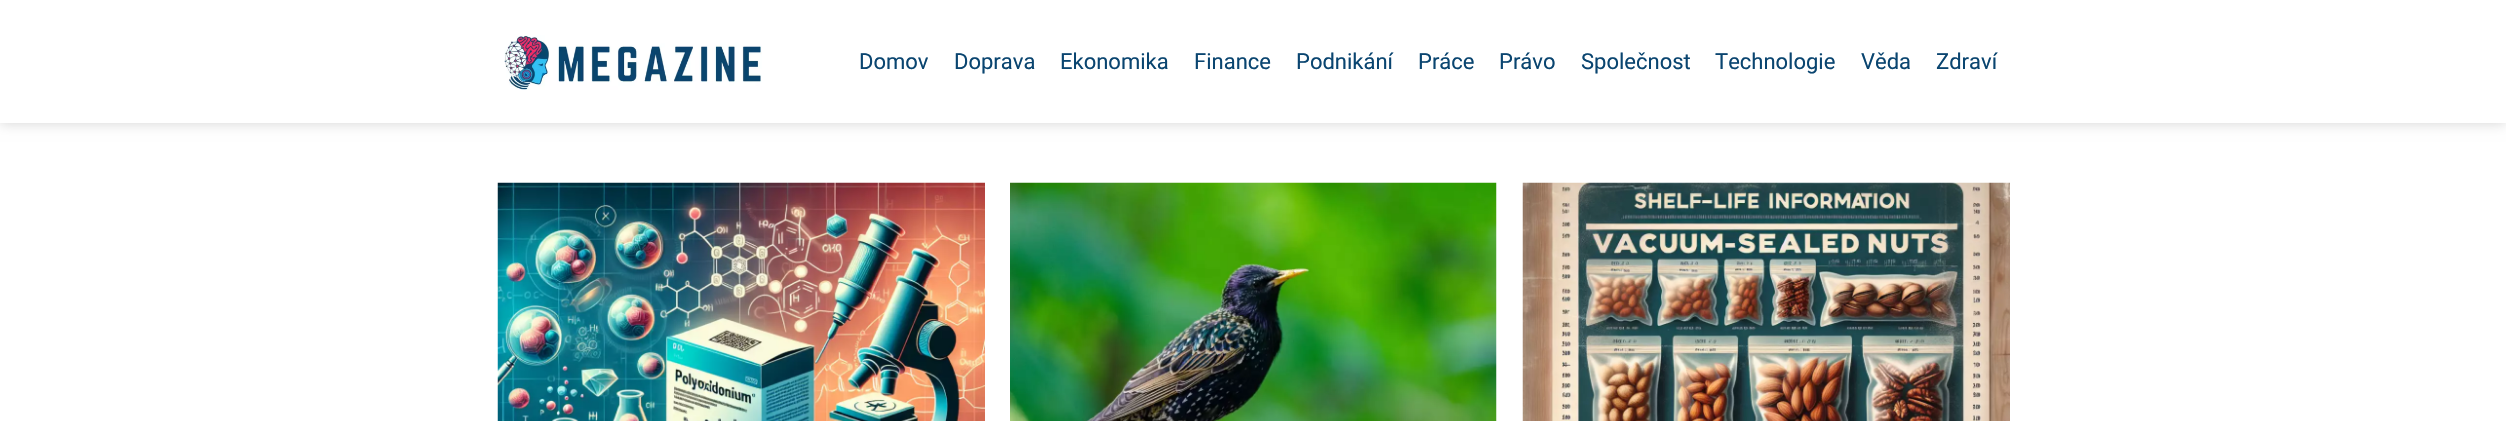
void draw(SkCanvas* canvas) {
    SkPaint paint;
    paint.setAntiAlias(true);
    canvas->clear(0xFFFFFFFF);
    paint.setColor(0x26000000);
    paint.setMaskFilter(SkMaskFilter::MakeBlur(kNormal_SkBlurStyle, 6));
    canvas->drawRect(SkRect::MakeXYWH(0, 1, 2506, 123), paint);
    paint.setMaskFilter(nullptr);
    paint.setColor(0xFFFFFFFF);
    canvas->drawRect(SkRect::MakeXYWH(0, 0, 2506, 123), paint);
    canvas->drawImageRect(SkImages::DeferredFromEncodedData(SkData::MakeFromFileName("img1.png")), SkRect::MakeXYWH(504, 35, 258, 55), SkSamplingOptions());
    SkFont font1(fontMgr->matchFamilyStyle("Roboto", SkFontStyle::Normal()), 22);
    font1.setSubpixel(true);
    paint.setColor(0xFF0A4570);
    canvas->drawString("Domov", 859, 69, font1, paint);
    canvas->drawString("Doprava", 954, 69, font1, paint);
    canvas->drawString("Ekonomika", 1060, 69, font1, paint);
    canvas->drawString("Finance", 1194, 69, font1, paint);
    canvas->drawString("Podnikání", 1296, 69, font1, paint);
    canvas->drawString("Práce", 1418, 69, font1, paint);
    canvas->drawString("Právo", 1499, 69, font1, paint);
    canvas->drawString("Společnost", 1581, 69, font1, paint);
    canvas->drawString("Technologie", 1715, 69, font1, paint);
    canvas->drawString("Věda", 1861, 69, font1, paint);
    canvas->drawString("Zdraví", 1936, 69, font1, paint);
    canvas->drawImageRect(SkImages::DeferredFromEncodedData(SkData::MakeFromFileName("img2.png")), SkRect::MakeXYWH(497, 182, 488, 239), SkSamplingOptions());
    canvas->drawImageRect(SkImages::DeferredFromEncodedData(SkData::MakeFromFileName("img3.png")), SkRect::MakeXYWH(1010, 182, 487, 239), SkSamplingOptions());
    canvas->drawImageRect(SkImages::DeferredFromEncodedData(SkData::MakeFromFileName("img4.png")), SkRect::MakeXYWH(1522, 182, 488, 239), SkSamplingOptions());
}
